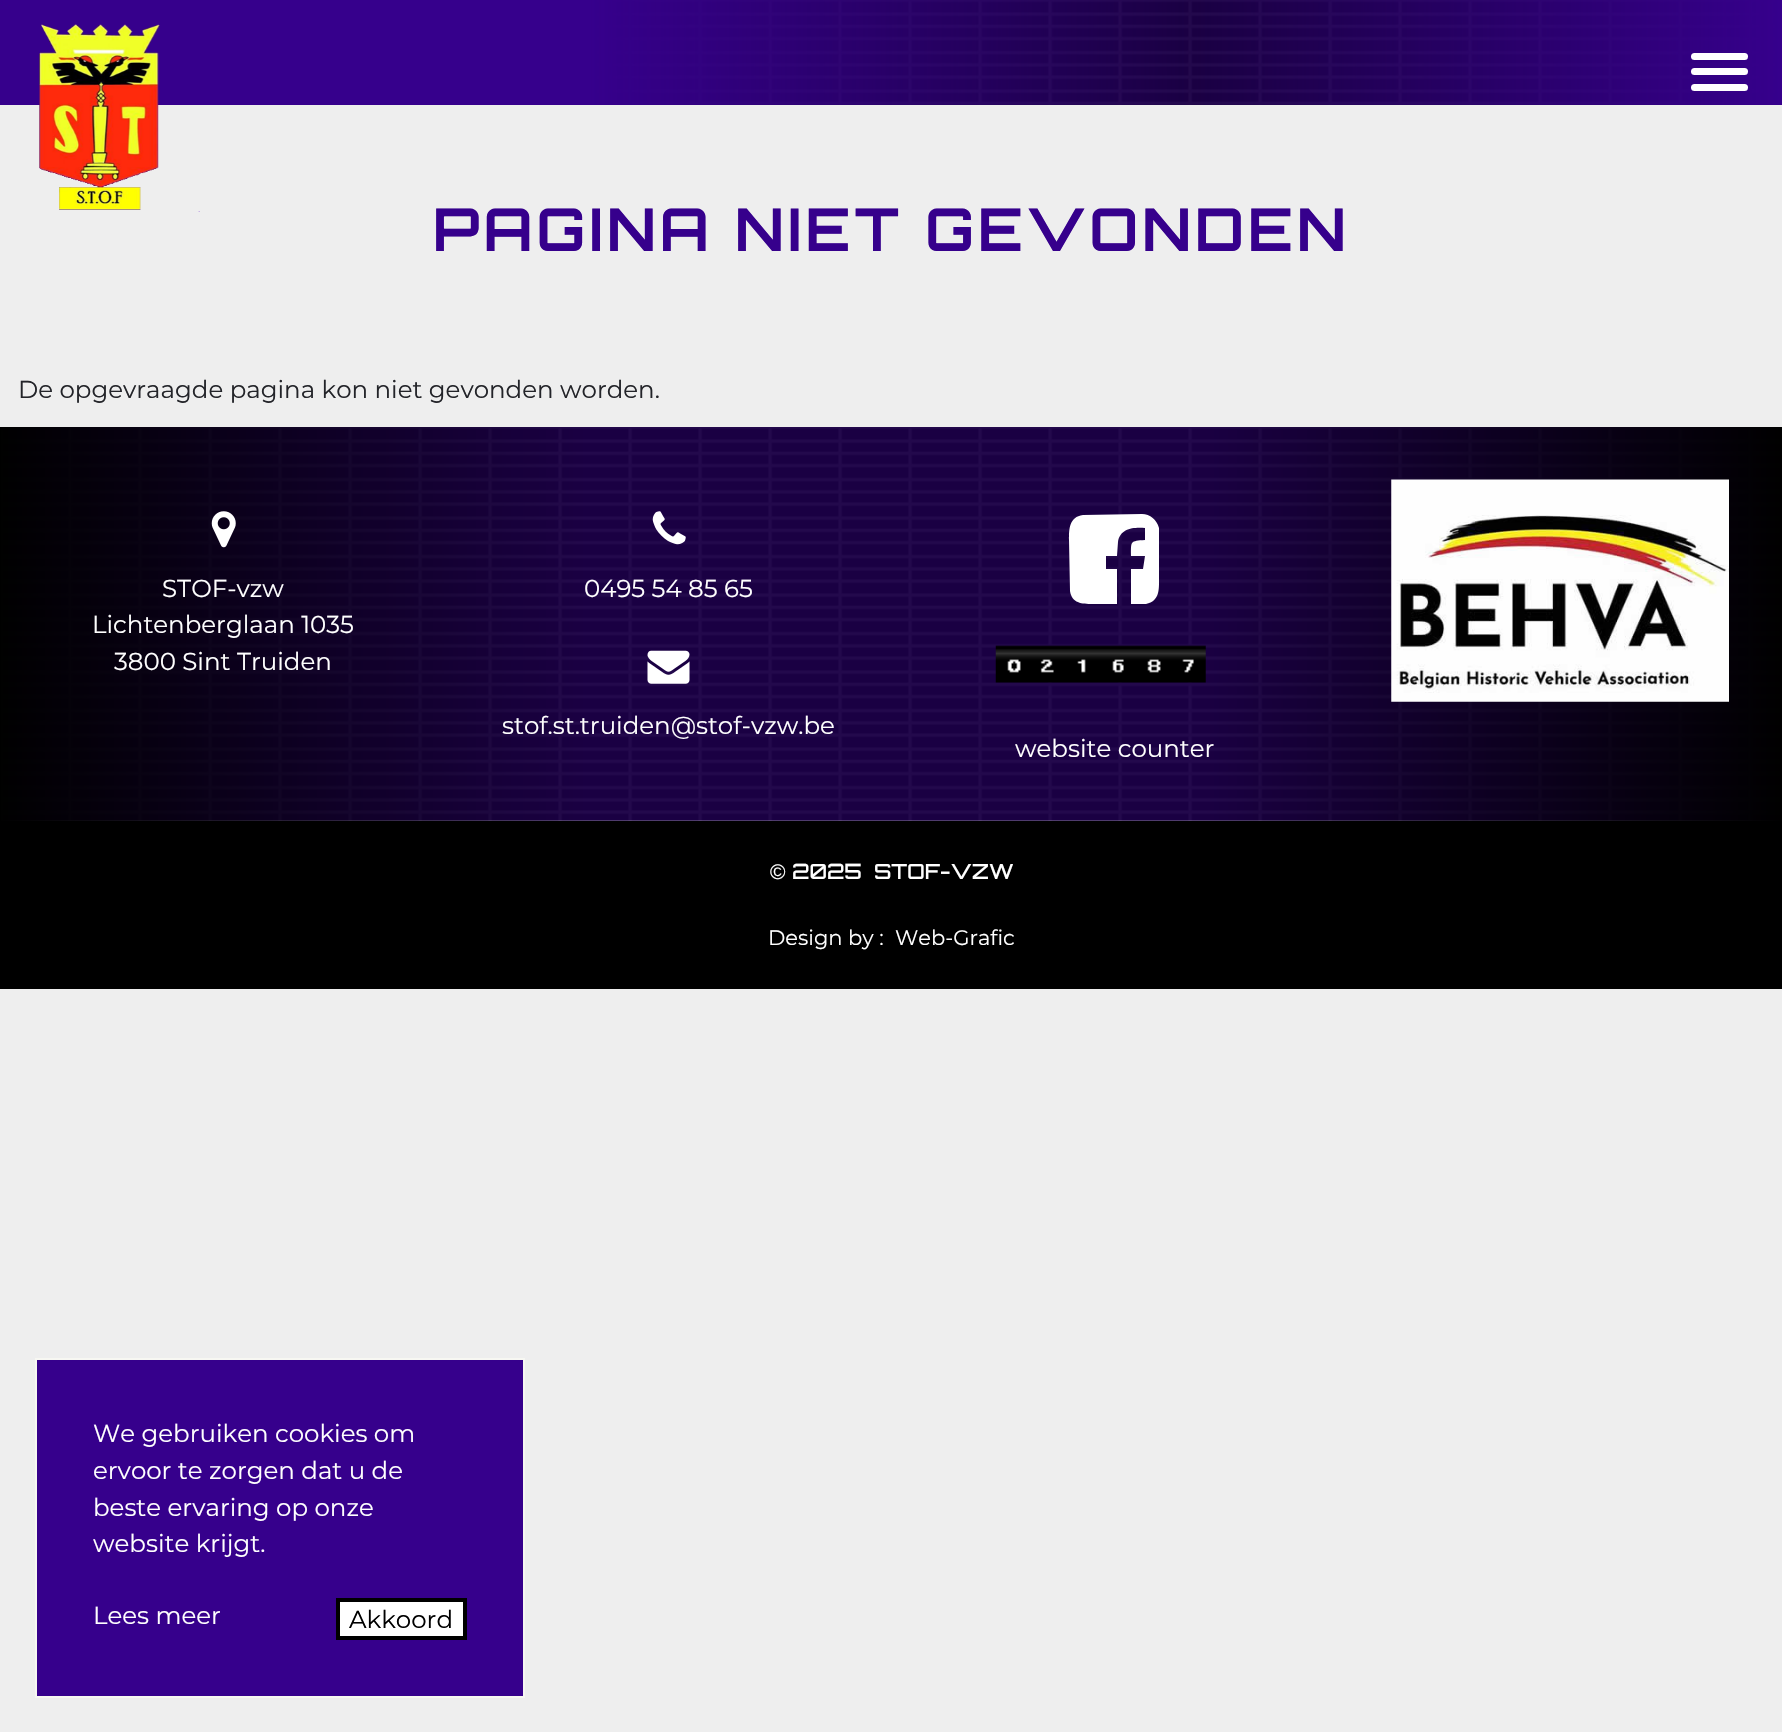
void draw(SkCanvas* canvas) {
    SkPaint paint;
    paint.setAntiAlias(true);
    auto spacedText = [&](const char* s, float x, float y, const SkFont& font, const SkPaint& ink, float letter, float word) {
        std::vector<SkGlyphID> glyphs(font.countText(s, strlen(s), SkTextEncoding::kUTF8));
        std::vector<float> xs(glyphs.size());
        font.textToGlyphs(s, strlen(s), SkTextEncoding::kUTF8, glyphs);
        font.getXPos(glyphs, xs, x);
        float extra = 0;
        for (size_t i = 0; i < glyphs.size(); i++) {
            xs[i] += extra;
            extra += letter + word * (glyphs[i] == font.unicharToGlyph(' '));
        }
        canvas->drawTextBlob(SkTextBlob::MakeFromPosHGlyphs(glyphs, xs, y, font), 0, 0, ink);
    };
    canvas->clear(0xFFEEEEEE);
    canvas->drawImageRect(SkImages::DeferredFromEncodedData(SkData::MakeFromFileName("img1.png")), SkRect::MakeXYWH(0, 0, 1782, 105), SkSamplingOptions());
    canvas->drawImageRect(SkImages::DeferredFromEncodedData(SkData::MakeFromFileName("img2.png")), SkRect::MakeXYWH(39, 24, 161, 188), SkSamplingOptions());
    paint.setColor(0xFFFFFFFF);
    canvas->drawRoundRect(SkRect::MakeXYWH(1691, 53, 57, 7), 3.5f, 3.5f, paint);
    canvas->drawRoundRect(SkRect::MakeXYWH(1691, 68, 57, 7), 3.5f, 3.5f, paint);
    canvas->drawRoundRect(SkRect::MakeXYWH(1691, 84, 57, 7), 3.5f, 3.5f, paint);
    SkFont font1(fontMgr->matchFamilyStyle("Orbitron", SkFontStyle::Bold()), 56.75f);
    font1.setSubpixel(true);
    paint.setColor(0xFF36008C);
    spacedText("PAGINA NIET GEVONDEN", 433, 251, font1, paint, 5.6f, 0);
    SkFont font2(fontMgr->matchFamilyStyle("Montserrat", SkFontStyle::Normal()), 24.5f);
    font2.setSubpixel(true);
    paint.setColor(0xFF232429);
    canvas->drawString("De opgevraagde pagina kon niet gevonden worden.", 18, 398, font2, paint);
    canvas->drawImageRect(SkImages::DeferredFromEncodedData(SkData::MakeFromFileName("img3.png")), SkRect::MakeXYWH(3, 427, 1777, 394), SkSamplingOptions());
    {
        const SkColor colors[] = {0xFF000000, 0x00000000, 0x00000000, 0xFF000000};
        const float stops[] = {0, 0.33f, 0.67f, 1};
        const SkPoint ends[] = {{0, 624}, {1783, 624}};
        paint.setShader(SkGradientShader::MakeLinear(ends, colors, stops, 4, SkTileMode::kClamp));
        paint.setAlpha(255);
    }
    canvas->drawRect(SkRect::MakeXYWH(0, 427, 1782, 394), paint);
    canvas->drawImageRect(SkImages::DeferredFromEncodedData(SkData::MakeFromFileName("img4.png")), SkRect::MakeXYWH(211, 511, 25, 37), SkSamplingOptions());
    paint.setShader(nullptr);
    paint.setColor(0xFFFFFFFF);
    canvas->drawString("STOF-vzw", 162, 597, font2, paint);
    canvas->drawString("Lichtenberglaan 1035", 92, 633, font2, paint);
    canvas->drawString("3800 Sint Truiden", 114, 670, font2, paint);
    canvas->drawImageRect(SkImages::DeferredFromEncodedData(SkData::MakeFromFileName("img5.png")), SkRect::MakeXYWH(652, 511, 34, 34), SkSamplingOptions());
    canvas->drawString("0495 54 85 65", 584, 597, font2, paint);
    canvas->drawImageRect(SkImages::DeferredFromEncodedData(SkData::MakeFromFileName("img6.png")), SkRect::MakeXYWH(647, 650, 43, 34), SkSamplingOptions());
    canvas->drawString("stof.st.truiden@stof-vzw.be", 502, 734, font2, paint);
    canvas->drawImageRect(SkImages::DeferredFromEncodedData(SkData::MakeFromFileName("img7.png")), SkRect::MakeXYWH(1391, 479, 338, 223), SkSamplingOptions());
    canvas->drawPath(SkPathBuilder().moveTo(1142, 514).cubicTo(1150, 514, 1157, 520, 1159, 528).lineTo(1159, 578).cubicTo(1159, 589, 1160, 601, 1146, 604).lineTo(1131, 604).lineTo(1131, 569).lineTo(1143, 569).lineTo(1145, 556).lineTo(1131, 556).cubicTo(1131, 541, 1130, 541, 1145, 540).lineTo(1145, 528).cubicTo(1134, 527, 1120, 528, 1118, 542).lineTo(1117, 556).lineTo(1106, 556).lineTo(1106, 569).lineTo(1117, 569).lineTo(1117, 604).lineTo(1097, 604).cubicTo(1085, 604, 1072, 605, 1070, 591).lineTo(1069, 540).cubicTo(1069, 529, 1069, 517, 1083, 515).close().detach(), paint);
    canvas->drawImageRect(SkImages::DeferredFromEncodedData(SkData::MakeFromFileName("img8.png")), SkRect::MakeXYWH(995, 645, 211, 38), SkSamplingOptions());
    canvas->drawString("website counter", 1015, 757, font2, paint);
    paint.setColor(0xFF000000);
    canvas->drawRect(SkRect::MakeXYWH(0, 821, 1782, 168), paint);
    SkFont font3(fontMgr->matchFamilyStyle("Liberation Sans", SkFontStyle::Normal()), 21);
    font3.setSubpixel(true);
    paint.setColor(0xFFFFFFFF);
    canvas->drawString("©", 770, 879, font3, paint);
    SkFont font4(fontMgr->matchFamilyStyle("Orbitron", SkFontStyle(500, SkFontStyle::kNormal_Width, SkFontStyle::kUpright_Slant)), 21);
    font4.setSubpixel(true);
    canvas->drawString("2025", 792, 879, font4, paint);
    canvas->drawString("STOF-VZW", 874, 879, font4, paint);
    SkFont font5(fontMgr->matchFamilyStyle("Montserrat", SkFontStyle::Normal()), 21);
    font5.setSubpixel(true);
    canvas->drawString("Design by :", 768, 945, font5, paint);
    canvas->drawString("Web-Grafic", 895, 945, font5, paint);
    paint.setColor(0xFF36008C);
    canvas->drawRect(SkRect::MakeXYWH(36, 1359, 488, 338), paint);
    paint.setStyle(SkPaint::kStroke_Style);
    paint.setStrokeWidth(2);
    paint.setColor(0xFFF7F7F2);
    canvas->drawRect(SkRect::MakeXYWH(36, 1359, 488, 338), paint);
    paint.setStyle(SkPaint::kFill_Style);
    paint.setColor(0xFFFFFFFF);
    canvas->drawString("We gebruiken cookies om", 93, 1442, font2, paint);
    canvas->drawString("ervoor te zorgen dat u de", 93, 1479, font2, paint);
    canvas->drawString("beste ervaring op onze", 93, 1516, font2, paint);
    canvas->drawString("website krijgt.", 93, 1552, font2, paint);
    canvas->drawString("Lees meer", 93, 1624, font2, paint);
    canvas->drawRect(SkRect::MakeXYWH(338, 1600, 127, 38), paint);
    paint.setStyle(SkPaint::kStroke_Style);
    paint.setStrokeWidth(4);
    paint.setColor(0xFF000000);
    canvas->drawRect(SkRect::MakeXYWH(338, 1600, 127, 38), paint);
    paint.setStyle(SkPaint::kFill_Style);
    canvas->drawString("Akkoord", 349, 1628, font2, paint);
}
